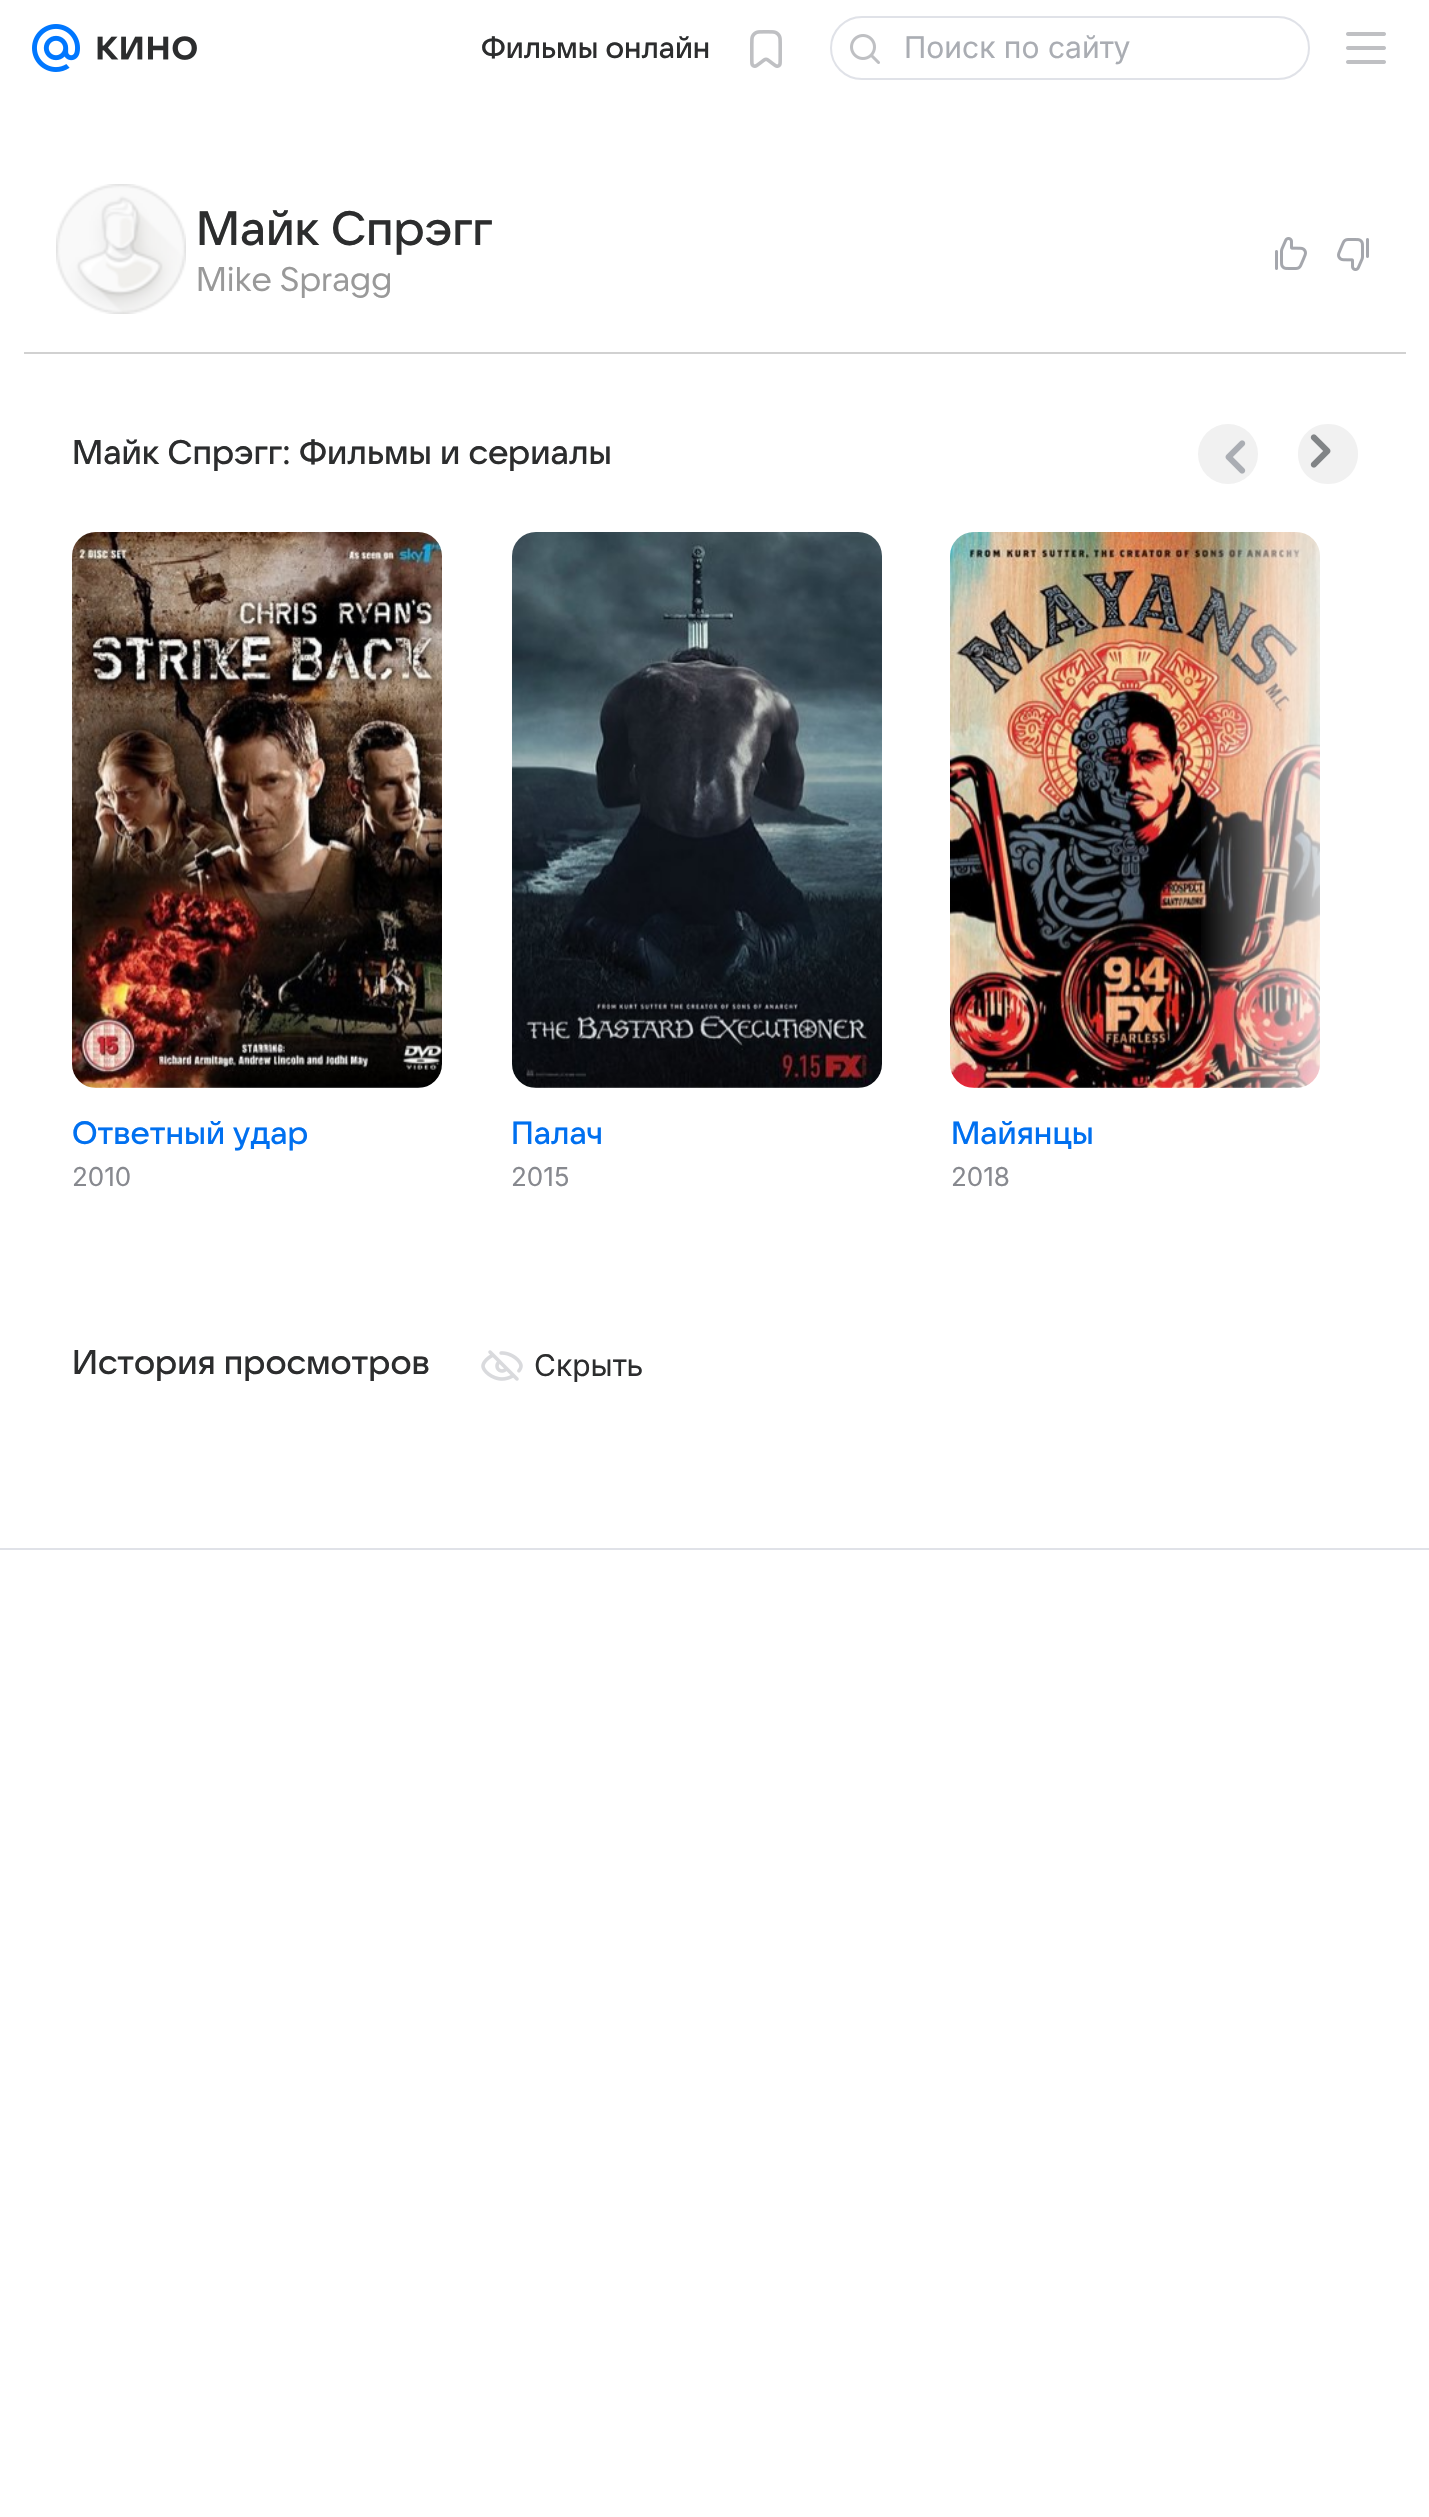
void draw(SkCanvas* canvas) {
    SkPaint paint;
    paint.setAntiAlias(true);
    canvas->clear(0xFFFFFFFF);
    canvas->drawImageRect(SkImages::DeferredFromEncodedData(SkData::MakeFromFileName("img1.png")), SkRect::MakeXYWH(32, 24, 48, 48), SkSamplingOptions());
    canvas->drawImageRect(SkImages::DeferredFromEncodedData(SkData::MakeFromFileName("img2.png")), SkRect::MakeXYWH(97, 36, 100, 24), SkSamplingOptions());
    SkFont font1(fontMgr->matchFamilyStyle("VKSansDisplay", SkFontStyle(500, SkFontStyle::kNormal_Width, SkFontStyle::kUpright_Slant)), 30);
    font1.setSubpixel(true);
    paint.setColor(0xFF2C2D2E);
    canvas->drawString("Фильмы онлайн", 481, 58, font1, paint);
    canvas->drawImageRect(SkImages::DeferredFromEncodedData(SkData::MakeFromFileName("img3.png")), SkRect::MakeXYWH(750, 30, 32, 38), SkSamplingOptions());
    paint.setStyle(SkPaint::kStroke_Style);
    paint.setStrokeWidth(2);
    paint.setColor(0xFFE0E2E8);
    canvas->drawRoundRect(SkRect::MakeXYWH(831, 17, 478, 62), 31, 31, paint);
    canvas->drawImageRect(SkImages::DeferredFromEncodedData(SkData::MakeFromFileName("img4.png")), SkRect::MakeXYWH(850, 34, 30, 30), SkSamplingOptions());
    SkFont font2(fontMgr->matchFamilyStyle("Inter", SkFontStyle::Normal()), 30);
    font2.setSubpixel(true);
    paint.setStyle(SkPaint::kFill_Style);
    paint.setColor(0xFFAAADB3);
    canvas->drawString("Поиск по сайту", 904, 58, font2, paint);
    canvas->drawImageRect(SkImages::DeferredFromEncodedData(SkData::MakeFromFileName("img5.png")), SkRect::MakeXYWH(1346, 32, 40, 32), SkSamplingOptions());
    paint.setColor(0xFFD1D1D1);
    canvas->drawRect(SkRect::MakeXYWH(24, 352, 1382, 2), paint);
    canvas->drawImageRect(SkImages::DeferredFromEncodedData(SkData::MakeFromFileName("img6.png")), SkRect::MakeXYWH(56, 184, 130, 130), SkSamplingOptions());
    SkFont font3(fontMgr->matchFamilyStyle("VKSansDisplay", SkFontStyle(500, SkFontStyle::kNormal_Width, SkFontStyle::kUpright_Slant)), 48);
    font3.setSubpixel(true);
    paint.setColor(0xFF2C2D2E);
    canvas->drawString("Майк Спрэгг", 196, 245, font3, paint);
    SkFont font4(fontMgr->matchFamilyStyle("VKSansDisplay", SkFontStyle::Normal()), 34);
    font4.setSubpixel(true);
    paint.setColor(0xFF999999);
    canvas->drawString("Mike Spragg", 196, 291, font4, paint);
    canvas->drawImageRect(SkImages::DeferredFromEncodedData(SkData::MakeFromFileName("img7.png")), SkRect::MakeXYWH(1275, 237, 32, 33), SkSamplingOptions());
    canvas->drawImageRect(SkImages::DeferredFromEncodedData(SkData::MakeFromFileName("img8.png")), SkRect::MakeXYWH(1337, 238, 32, 33), SkSamplingOptions());
    SkFont font5(fontMgr->matchFamilyStyle("VKSansDisplay", SkFontStyle(500, SkFontStyle::kNormal_Width, SkFontStyle::kUpright_Slant)), 34);
    font5.setSubpixel(true);
    paint.setColor(0xFF2C2D2E);
    canvas->drawString("Майк Спрэгг: Фильмы и сериалы", 72, 464, font5, paint);
    paint.setColor(0xFFF1F1F1);
    canvas->drawCircle(1228, 454, 30, paint);
    canvas->drawImageRect(SkImages::DeferredFromEncodedData(SkData::MakeFromFileName("img9.png")), SkRect::MakeXYWH(1225, 440, 21, 34), SkSamplingOptions());
    canvas->drawPath(SkPathBuilder().moveTo(1328, 484).cubicTo(1311, 484, 1298, 471, 1298, 454).cubicTo(1298, 437, 1311, 424, 1328, 424).cubicTo(1345, 424, 1358, 437, 1358, 454).cubicTo(1358, 471, 1345, 484, 1328, 484).close().detach(), paint);
    canvas->drawImageRect(SkImages::DeferredFromEncodedData(SkData::MakeFromFileName("img10.png")), SkRect::MakeXYWH(1310, 434, 21, 34), SkSamplingOptions());
    canvas->drawImageRect(SkImages::DeferredFromEncodedData(SkData::MakeFromFileName("img13.png")), SkRect::MakeXYWH(950, 532, 370, 556), SkSamplingOptions());
    {
        const SkColor colors[] = {0x00FFFFFF, 0xFFFFFFFF};
        const float stops[] = {0, 1};
        const SkPoint ends[] = {{1198, 884}, {1358, 884}};
        paint.setShader(SkGradientShader::MakeLinear(ends, colors, stops, 2, SkTileMode::kClamp));
        paint.setAlpha(255);
    }
    canvas->drawRect(SkRect::MakeXYWH(1201, 532, 119, 556), paint);
    canvas->drawImageRect(SkImages::DeferredFromEncodedData(SkData::MakeFromFileName("img11.png")), SkRect::MakeXYWH(72, 532, 370, 556), SkSamplingOptions());
    SkFont font6(fontMgr->matchFamilyStyle("VKSansDisplay", SkFontStyle(500, SkFontStyle::kNormal_Width, SkFontStyle::kUpright_Slant)), 32);
    font6.setSubpixel(true);
    paint.setShader(nullptr);
    paint.setColor(0xFF0070F0);
    canvas->drawString("Ответный удар", 72, 1144, font6, paint);
    SkFont font7(fontMgr->matchFamilyStyle("Inter", SkFontStyle::Normal()), 26);
    font7.setSubpixel(true);
    paint.setColor(0xFF87898F);
    canvas->drawString("2010", 72, 1186, font7, paint);
    canvas->drawImageRect(SkImages::DeferredFromEncodedData(SkData::MakeFromFileName("img12.png")), SkRect::MakeXYWH(512, 532, 370, 556), SkSamplingOptions());
    paint.setColor(0xFF0070F0);
    canvas->drawString("Палач", 511, 1144, font6, paint);
    paint.setColor(0xFF87898F);
    canvas->drawString("2015", 511, 1186, font7, paint);
    paint.setColor(0xFF0070F0);
    canvas->drawString("Майянцы", 951, 1144, font6, paint);
    paint.setColor(0xFF87898F);
    canvas->drawString("2018", 951, 1186, font7, paint);
    paint.setColor(0xFF2C2D2E);
    canvas->drawString("История просмотров", 72, 1374, font5, paint);
    canvas->drawImageRect(SkImages::DeferredFromEncodedData(SkData::MakeFromFileName("img14.png")), SkRect::MakeXYWH(481, 1350, 42, 31), SkSamplingOptions());
    canvas->drawString("Скрыть", 534, 1376, font2, paint);
    paint.setColor(0xFFE0E2E8);
    canvas->drawRect(SkRect::MakeXYWH(0, 1548, 1429, 2), paint);
}
